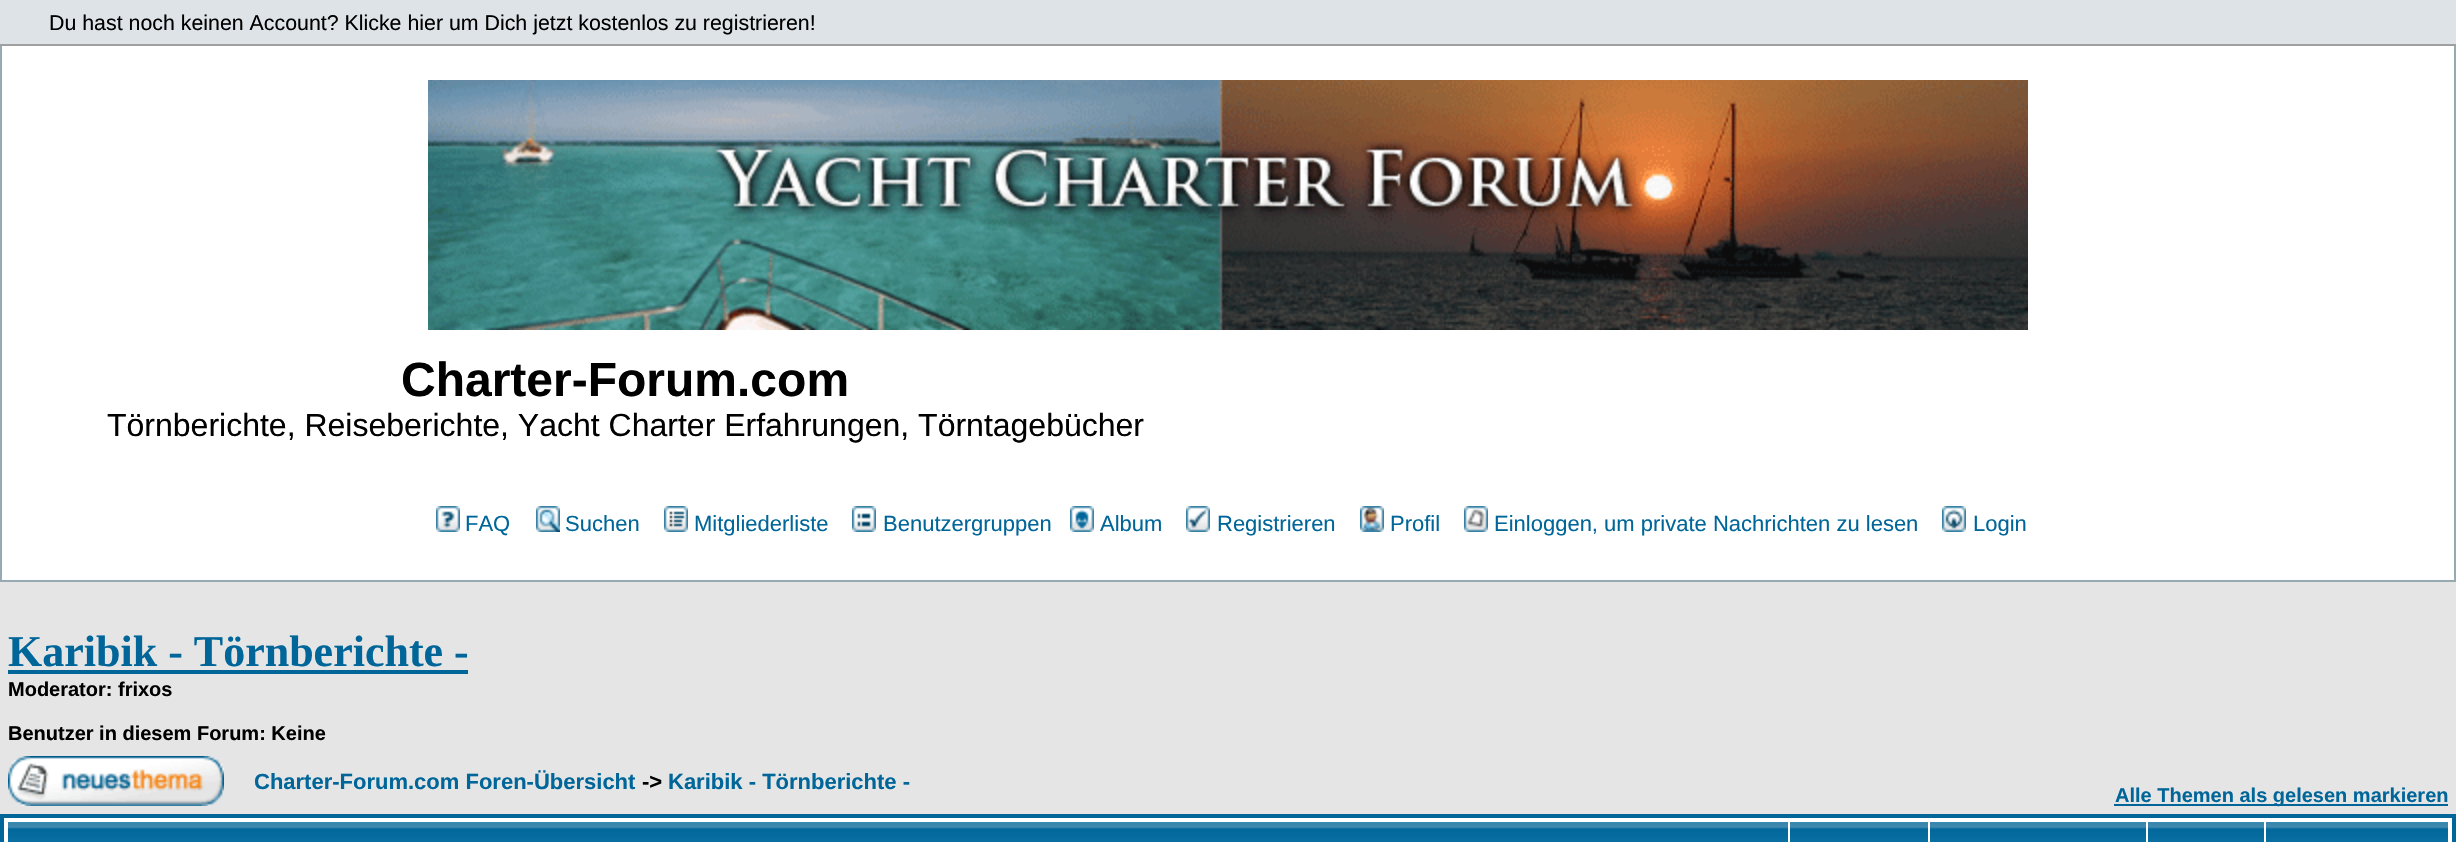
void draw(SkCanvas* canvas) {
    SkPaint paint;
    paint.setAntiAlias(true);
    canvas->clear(0xFFE5E5E5);
    paint.setColor(0xFFFFFFFF);
    canvas->drawRect(SkRect::MakeXYWH(2, 46, 2452, 534), paint);
    paint.setStyle(SkPaint::kStroke_Style);
    paint.setStrokeWidth(2);
    paint.setColor(0xFF98AAB1);
    canvas->drawRect(SkRect::MakeXYWH(1, 37, 2454, 544), paint);
    paint.setStyle(SkPaint::kFill_Style);
    paint.setColor(0xFFDEE3E7);
    canvas->drawRect(SkRect::MakeXYWH(0, 0, 2456, 44), paint);
    paint.setColor(0xFF9F9F9F);
    canvas->drawRect(SkRect::MakeXYWH(0, 44, 2456, 2), paint);
    SkFont font1(fontMgr->matchFamilyStyle("Liberation Sans", SkFontStyle::Normal()), 21.35f);
    font1.setSubpixel(true);
    paint.setColor(0xFF000000);
    canvas->drawString("Du hast noch keinen Account? Klicke hier um Dich jetzt kostenlos zu registrieren!", 49, 30, font1, paint);
    canvas->drawImageRect(SkImages::DeferredFromEncodedData(SkData::MakeFromFileName("img1.png")), SkRect::MakeXYWH(428, 80, 1600, 250), SkSamplingOptions());
    SkFont font2(fontMgr->matchFamilyStyle("Liberation Sans", SkFontStyle::Bold()), 48);
    font2.setSubpixel(true);
    canvas->drawString("Charter-Forum.com", 401, 396, font2, paint);
    SkFont font3(fontMgr->matchFamilyStyle("Liberation Sans", SkFontStyle::Normal()), 32);
    font3.setSubpixel(true);
    canvas->drawString("Törnberichte, Reiseberichte, Yacht Charter Erfahrungen, Törntagebücher", 107, 436, font3, paint);
    canvas->drawImageRect(SkImages::DeferredFromEncodedData(SkData::MakeFromFileName("img2.png")), SkRect::MakeXYWH(436, 506, 24, 26), SkSamplingOptions());
    SkFont font4(fontMgr->matchFamilyStyle("Liberation Sans", SkFontStyle::Normal()), 22);
    font4.setSubpixel(true);
    paint.setColor(0xFF006699);
    canvas->drawString("FAQ", 465, 531, font4, paint);
    canvas->drawImageRect(SkImages::DeferredFromEncodedData(SkData::MakeFromFileName("img3.png")), SkRect::MakeXYWH(536, 506, 24, 26), SkSamplingOptions());
    canvas->drawString("Suchen", 565, 531, font4, paint);
    canvas->drawImageRect(SkImages::DeferredFromEncodedData(SkData::MakeFromFileName("img4.png")), SkRect::MakeXYWH(664, 506, 24, 26), SkSamplingOptions());
    canvas->drawString("Mitgliederliste", 694, 531, font4, paint);
    canvas->drawImageRect(SkImages::DeferredFromEncodedData(SkData::MakeFromFileName("img5.png")), SkRect::MakeXYWH(852, 506, 24, 26), SkSamplingOptions());
    canvas->drawString("Benutzergruppen", 883, 531, font4, paint);
    canvas->drawImageRect(SkImages::DeferredFromEncodedData(SkData::MakeFromFileName("img6.png")), SkRect::MakeXYWH(1070, 506, 24, 26), SkSamplingOptions());
    canvas->drawString("Album", 1100, 531, font4, paint);
    canvas->drawImageRect(SkImages::DeferredFromEncodedData(SkData::MakeFromFileName("img7.png")), SkRect::MakeXYWH(1186, 506, 24, 26), SkSamplingOptions());
    canvas->drawString("Registrieren", 1217, 531, font4, paint);
    canvas->drawImageRect(SkImages::DeferredFromEncodedData(SkData::MakeFromFileName("img8.png")), SkRect::MakeXYWH(1360, 506, 24, 26), SkSamplingOptions());
    canvas->drawString("Profil", 1390, 531, font4, paint);
    canvas->drawImageRect(SkImages::DeferredFromEncodedData(SkData::MakeFromFileName("img9.png")), SkRect::MakeXYWH(1464, 506, 24, 26), SkSamplingOptions());
    canvas->drawString("Einloggen, um private Nachrichten zu lesen", 1494, 531, font4, paint);
    canvas->drawImageRect(SkImages::DeferredFromEncodedData(SkData::MakeFromFileName("img10.png")), SkRect::MakeXYWH(1942, 506, 24, 26), SkSamplingOptions());
    canvas->drawString("Login", 1973, 531, font4, paint);
    SkFont font5(fontMgr->matchFamilyStyle("Liberation Serif", SkFontStyle::Bold()), 44);
    font5.setSubpixel(true);
    canvas->drawString("Karibik - Törnberichte -", 8, 666, font5, paint);
    canvas->drawRect(SkRect::MakeXYWH(8, 670, 460, 4), paint);
    SkFont font6(fontMgr->matchFamilyStyle("Liberation Sans", SkFontStyle::Bold()), 20);
    font6.setSubpixel(true);
    paint.setColor(0xFF000000);
    canvas->drawString("Moderator: frixos", 8, 696, font6, paint);
    canvas->drawString("Benutzer in diesem Forum: Keine", 8, 740, font6, paint);
    canvas->drawImageRect(SkImages::DeferredFromEncodedData(SkData::MakeFromFileName("img11.png")), SkRect::MakeXYWH(8, 756, 216, 50), SkSamplingOptions());
    SkFont font7(fontMgr->matchFamilyStyle("Liberation Sans", SkFontStyle::Bold()), 22);
    font7.setSubpixel(true);
    paint.setColor(0xFF006699);
    canvas->drawString("Charter-Forum.com Foren-Übersicht", 254, 789, font7, paint);
    paint.setColor(0xFF000000);
    canvas->drawString("->", 642, 789, font7, paint);
    paint.setColor(0xFF006699);
    canvas->drawString("Karibik - Törnberichte -", 668, 789, font7, paint);
    canvas->drawRect(SkRect::MakeXYWH(2114, 804, 334, 2), paint);
    canvas->drawString("Alle Themen als gelesen markieren", 2115, 802, font6, paint);
    paint.setColor(0xFFFFFFFF);
    canvas->drawRect(SkRect::MakeXYWH(2, 816, 2452, 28), paint);
    paint.setStyle(SkPaint::kStroke_Style);
    paint.setStrokeWidth(4);
    paint.setColor(0xFF006699);
    canvas->drawRect(SkRect::MakeXYWH(2, 816, 2452, 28), paint);
    canvas->drawImageRect(SkImages::DeferredFromEncodedData(SkData::MakeFromFileName("img12.png")), SkRect::MakeXYWH(8, 822, 1780, 20), SkSamplingOptions());
    canvas->drawImageRect(SkImages::DeferredFromEncodedData(SkData::MakeFromFileName("img13.png")), SkRect::MakeXYWH(1790, 822, 138, 20), SkSamplingOptions());
    canvas->drawImageRect(SkImages::DeferredFromEncodedData(SkData::MakeFromFileName("img14.png")), SkRect::MakeXYWH(1930, 822, 216, 20), SkSamplingOptions());
    canvas->drawImageRect(SkImages::DeferredFromEncodedData(SkData::MakeFromFileName("img15.png")), SkRect::MakeXYWH(2148, 822, 116, 20), SkSamplingOptions());
    canvas->drawImageRect(SkImages::DeferredFromEncodedData(SkData::MakeFromFileName("img16.png")), SkRect::MakeXYWH(2266, 822, 182, 20), SkSamplingOptions());
}
